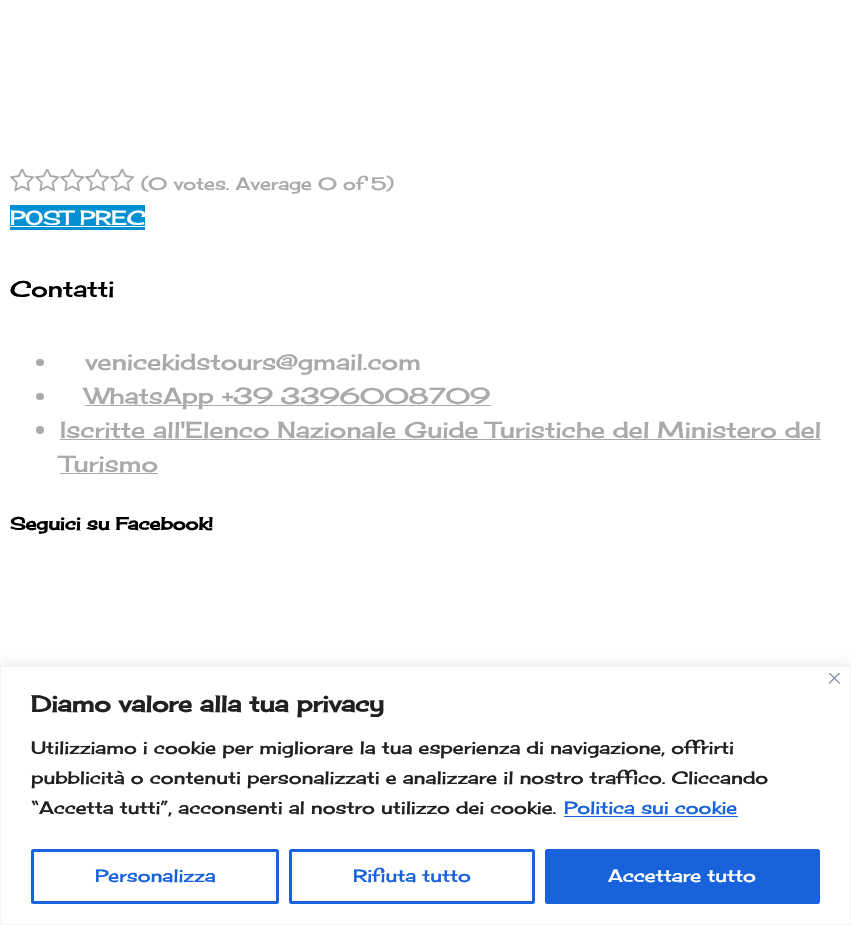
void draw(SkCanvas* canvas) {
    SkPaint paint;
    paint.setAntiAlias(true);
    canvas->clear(0xFFFFFFFF);
    canvas->drawImageRect(SkImages::DeferredFromEncodedData(SkData::MakeFromFileName("img1.png")), SkRect::MakeXYWH(10, 169, 25, 23), SkSamplingOptions());
    canvas->drawImageRect(SkImages::DeferredFromEncodedData(SkData::MakeFromFileName("img1.png")), SkRect::MakeXYWH(35, 169, 25, 23), SkSamplingOptions());
    canvas->drawImageRect(SkImages::DeferredFromEncodedData(SkData::MakeFromFileName("img1.png")), SkRect::MakeXYWH(60, 169, 25, 23), SkSamplingOptions());
    canvas->drawImageRect(SkImages::DeferredFromEncodedData(SkData::MakeFromFileName("img1.png")), SkRect::MakeXYWH(85, 169, 25, 23), SkSamplingOptions());
    canvas->drawImageRect(SkImages::DeferredFromEncodedData(SkData::MakeFromFileName("img1.png")), SkRect::MakeXYWH(110, 169, 25, 23), SkSamplingOptions());
    SkFont font1(fontMgr->matchFamilyStyle("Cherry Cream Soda", SkFontStyle::Normal()), 17.5f);
    font1.setSubpixel(true);
    paint.setColor(0xFFAAAAAA);
    canvas->drawString("(0 votes. Average 0 of 5)", 141, 190, font1, paint);
    paint.setColor(0xFF0190D2);
    canvas->drawRect(SkRect::MakeXYWH(10, 205, 135, 25), paint);
    SkFont font2(fontMgr->matchFamilyStyle("Cherry Cream Soda", SkFontStyle::Normal()), 20);
    font2.setSubpixel(true);
    paint.setColor(0xFFFFFFFF);
    canvas->drawString("POST PREC", 10, 225, font2, paint);
    canvas->drawRect(SkRect::MakeXYWH(10, 226, 135, 1), paint);
    SkFont font3(fontMgr->matchFamilyStyle("Cherry Cream Soda", SkFontStyle::Normal()), 22.5f);
    font3.setSubpixel(true);
    paint.setColor(0xFF000000);
    canvas->drawString("Contatti", 10, 297, font3, paint);
    paint.setColor(0xFFAAAAAA);
    canvas->drawRoundRect(SkRect::MakeXYWH(36, 359, 8, 7), 3.5f, 3.5f, paint);
    canvas->drawString("venicekidstours@gmail.com", 85, 370, font3, paint);
    canvas->drawRoundRect(SkRect::MakeXYWH(36, 393, 8, 7), 3.5f, 3.5f, paint);
    canvas->drawRect(SkRect::MakeXYWH(85, 405, 406, 1), paint);
    canvas->drawString("WhatsApp +39 3396008709", 85, 404, font3, paint);
    canvas->drawCircle(40, 430, 4, paint);
    canvas->drawString("Iscritte all'Elenco Nazionale Guide Turistiche del Ministero del", 60, 438, font3, paint);
    canvas->drawRect(SkRect::MakeXYWH(60, 439, 761, 1), paint);
    canvas->drawString("Turismo", 60, 472, font3, paint);
    canvas->drawRect(SkRect::MakeXYWH(60, 473, 98, 1), paint);
    SkFont font4(fontMgr->matchFamilyStyle("Cherry Cream Soda", SkFontStyle::Bold()), 17.5f);
    font4.setSubpixel(true);
    paint.setColor(0xFF000000);
    canvas->drawString("Seguici su Facebook!", 10, 530, font4, paint);
    paint.setColor(0x4DACABAB);
    paint.setMaskFilter(SkMaskFilter::MakeBlur(kNormal_SkBlurStyle, 6));
    canvas->drawRect(SkRect::MakeXYWH(0, 665, 851, 259), paint);
    paint.setMaskFilter(nullptr);
    paint.setColor(0xFFFFFFFF);
    canvas->drawRect(SkRect::MakeXYWH(0.5f, 666.5f, 850, 258), paint);
    paint.setStyle(SkPaint::kStroke_Style);
    paint.setStrokeWidth(1);
    paint.setColor(0xFFF4F4F4);
    canvas->drawRect(SkRect::MakeXYWH(0.5f, 666.5f, 850, 258), paint);
    canvas->drawImageRect(SkImages::DeferredFromEncodedData(SkData::MakeFromFileName("img2.png")), SkRect::MakeXYWH(829, 673, 11, 11), SkSamplingOptions());
    SkFont font5(fontMgr->matchFamilyStyle("Cherry Cream Soda", SkFontStyle::Bold()), 22.5f);
    font5.setSubpixel(true);
    paint.setStyle(SkPaint::kFill_Style);
    paint.setColor(0xFF212121);
    canvas->drawString("Diamo valore alla tua privacy", 31, 712, font5, paint);
    canvas->drawString("Utilizziamo i cookie per migliorare la tua esperienza di navigazione, offrirti", 31, 754, font1, paint);
    canvas->drawString("pubblicità o contenuti personalizzati e analizzare il nostro traffico. Cliccando", 31, 784, font1, paint);
    canvas->drawString("“Accetta tutti”, acconsenti al nostro utilizzo dei cookie.", 31, 814, font1, paint);
    paint.setColor(0xFF1863DC);
    canvas->drawString("Politica sui cookie", 564, 814, font1, paint);
    canvas->drawRect(SkRect::MakeXYWH(564, 816, 174, 1), paint);
    paint.setStyle(SkPaint::kStroke_Style);
    paint.setStrokeWidth(3);
    canvas->drawRoundRect(SkRect::MakeXYWH(32.5f, 850.5f, 245, 52), 1, 1, paint);
    paint.setStyle(SkPaint::kFill_Style);
    canvas->drawString("Personalizza", 95, 882, font1, paint);
    paint.setStyle(SkPaint::kStroke_Style);
    canvas->drawRoundRect(SkRect::MakeXYWH(290.5f, 850.5f, 243, 52), 1, 1, paint);
    paint.setStyle(SkPaint::kFill_Style);
    canvas->drawString("Rifiuta tutto", 353, 882, font1, paint);
    canvas->drawRoundRect(SkRect::MakeXYWH(546.5f, 850.5f, 272, 52), 1, 1, paint);
    paint.setStyle(SkPaint::kStroke_Style);
    canvas->drawRoundRect(SkRect::MakeXYWH(546.5f, 850.5f, 272, 52), 1, 1, paint);
    paint.setStyle(SkPaint::kFill_Style);
    paint.setColor(0xFFFFFFFF);
    canvas->drawString("Accettare tutto", 608, 882, font1, paint);
}
